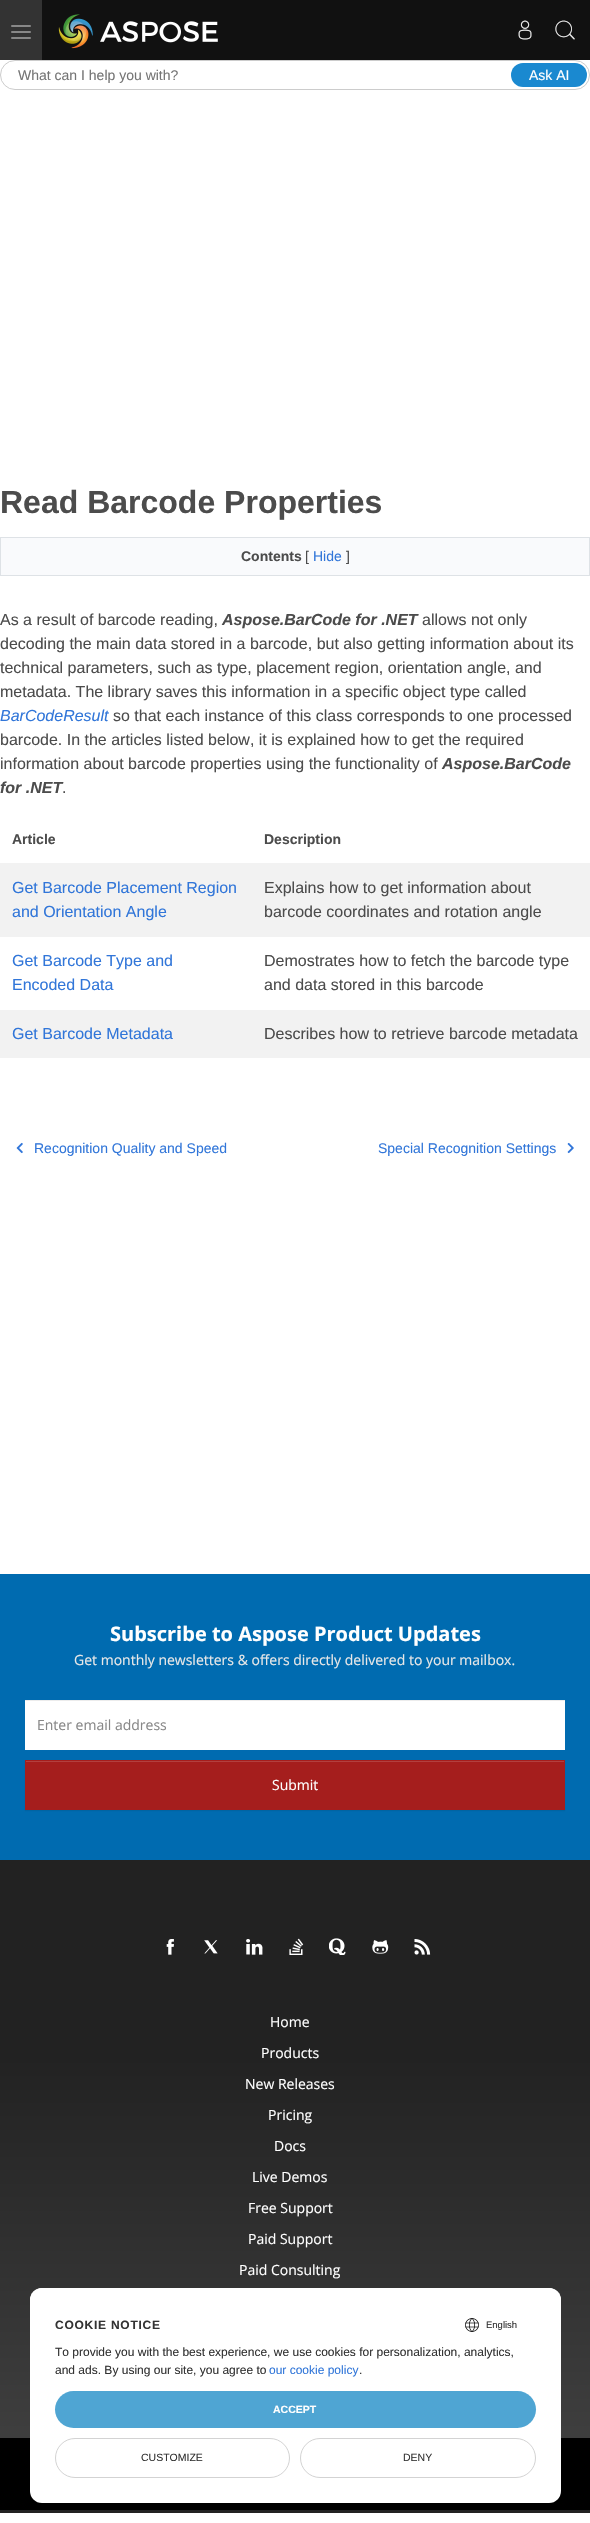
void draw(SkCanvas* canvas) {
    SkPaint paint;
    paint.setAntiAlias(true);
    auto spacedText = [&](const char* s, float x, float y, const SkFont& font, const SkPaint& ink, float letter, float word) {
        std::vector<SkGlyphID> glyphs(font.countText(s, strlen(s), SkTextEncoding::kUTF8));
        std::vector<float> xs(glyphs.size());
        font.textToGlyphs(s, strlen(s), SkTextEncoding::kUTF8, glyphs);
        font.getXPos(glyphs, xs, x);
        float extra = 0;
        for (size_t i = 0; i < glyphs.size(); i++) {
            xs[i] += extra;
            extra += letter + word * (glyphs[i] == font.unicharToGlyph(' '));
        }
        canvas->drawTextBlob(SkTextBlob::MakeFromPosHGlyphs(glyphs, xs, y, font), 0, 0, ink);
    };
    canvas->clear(0xFFFFFFFF);
    paint.setColor(0xFF111111);
    canvas->drawRect(SkRect::MakeXYWH(42, 0, 548, 60), paint);
    paint.setColor(0xFF333333);
    canvas->drawRect(SkRect::MakeXYWH(0, 0, 42, 60), paint);
    paint.setColor(0xFF888888);
    canvas->drawRoundRect(SkRect::MakeXYWH(11, 25, 20, 2), 1, 1, paint);
    canvas->drawRoundRect(SkRect::MakeXYWH(11, 31, 20, 2), 1, 1, paint);
    canvas->drawRoundRect(SkRect::MakeXYWH(11, 37, 20, 2), 1, 1, paint);
    canvas->drawImageRect(SkImages::DeferredFromEncodedData(SkData::MakeFromFileName("img1.png")), SkRect::MakeXYWH(58, 14, 160, 35), SkSamplingOptions());
    canvas->drawImageRect(SkImages::DeferredFromEncodedData(SkData::MakeFromFileName("img2.png")), SkRect::MakeXYWH(518, 20, 14, 20), SkSamplingOptions());
    canvas->drawImageRect(SkImages::DeferredFromEncodedData(SkData::MakeFromFileName("img3.png")), SkRect::MakeXYWH(555, 20, 20, 20), SkSamplingOptions());
    paint.setStyle(SkPaint::kStroke_Style);
    paint.setStrokeWidth(1);
    paint.setColor(0xFFCCCCCC);
    canvas->drawRoundRect(SkRect::MakeXYWH(0.5f, 60.5f, 589, 29), 14.5f, 14.5f, paint);
    SkFont font1(fontMgr->matchFamilyStyle("Liberation Sans", SkFontStyle::Normal()), 14);
    font1.setSubpixel(true);
    paint.setStyle(SkPaint::kFill_Style);
    paint.setColor(0xFF757575);
    canvas->drawString("What can I help you with?", 18, 80, font1, paint);
    paint.setColor(0xFF1A89D0);
    canvas->drawRoundRect(SkRect::MakeXYWH(511, 63, 76, 24), 12, 12, paint);
    paint.setColor(0xFFFFFFFF);
    canvas->drawString("Ask AI", 529, 80, font1, paint);
    SkFont font2(fontMgr->matchFamilyStyle("Liberation Sans", SkFontStyle::Bold()), 32);
    font2.setSubpixel(true);
    paint.setColor(0xFF4C4C4C);
    canvas->drawString("Read Barcode Properties", 0, 513, font2, paint);
    paint.setColor(0xFFF9FAFC);
    canvas->drawRect(SkRect::MakeXYWH(0.5f, 537.5f, 589, 38), paint);
    paint.setStyle(SkPaint::kStroke_Style);
    paint.setColor(0xFFDEE2E6);
    canvas->drawRect(SkRect::MakeXYWH(0.5f, 537.5f, 589, 38), paint);
    SkFont font3(fontMgr->matchFamilyStyle("Liberation Sans", SkFontStyle::Bold()), 14);
    font3.setSubpixel(true);
    paint.setStyle(SkPaint::kFill_Style);
    paint.setColor(0xFF4C4C4C);
    canvas->drawString("Contents", 241, 561, font3, paint);
    canvas->drawString("[", 305, 561, font1, paint);
    paint.setColor(0xFF3176D9);
    canvas->drawString("Hide", 313, 561, font1, paint);
    paint.setColor(0xFF4C4C4C);
    canvas->drawString("]", 346, 561, font1, paint);
    SkFont font4(fontMgr->matchFamilyStyle("Liberation Sans", SkFontStyle::Normal()), 16);
    font4.setSubpixel(true);
    canvas->drawString("As a result of barcode reading,", 0, 625, font4, paint);
    SkFont font5(fontMgr->matchFamilyStyle("Liberation Sans", SkFontStyle::BoldItalic()), 16);
    font5.setSubpixel(true);
    canvas->drawString("Aspose.BarCode for .NET", 222, 625, font5, paint);
    canvas->drawString("allows not only", 422, 625, font4, paint);
    canvas->drawString("decoding the main data stored in a barcode, but also getting information about its", 0, 649, font4, paint);
    canvas->drawString("technical parameters, such as type, placement region, orientation angle, and", 0, 673, font4, paint);
    canvas->drawString("metadata. The library saves this information in a specific object type called", 0, 697, font4, paint);
    SkFont font6(fontMgr->matchFamilyStyle("Liberation Sans", SkFontStyle::Italic()), 16);
    font6.setSubpixel(true);
    paint.setColor(0xFF3176D9);
    canvas->drawString("BarCodeResult", 0, 721, font6, paint);
    paint.setColor(0xFF4C4C4C);
    canvas->drawString("so that each instance of this class corresponds to one processed", 113, 721, font4, paint);
    canvas->drawString("barcode. In the articles listed below, it is explained how to get the required", 0, 745, font4, paint);
    canvas->drawString("information about barcode properties using the functionality of", 0, 769, font4, paint);
    canvas->drawString("Aspose.BarCode", 442, 769, font5, paint);
    canvas->drawString("for .NET", 0, 793, font5, paint);
    canvas->drawString(".", 62, 793, font4, paint);
    canvas->drawString("Article", 12, 844, font3, paint);
    canvas->drawString("Description", 264, 844, font3, paint);
    paint.setColor(0xFFF2F2F2);
    canvas->drawRect(SkRect::MakeXYWH(0, 863, 590, 74), paint);
    paint.setColor(0xFF3176D9);
    canvas->drawString("Get Barcode Placement Region", 12, 893, font4, paint);
    canvas->drawString("and Orientation Angle", 12, 917, font4, paint);
    paint.setColor(0xFF4C4C4C);
    canvas->drawString("Explains how to get information about", 264, 893, font4, paint);
    canvas->drawString("barcode coordinates and rotation angle", 264, 917, font4, paint);
    paint.setColor(0xFF3176D9);
    canvas->drawString("Get Barcode Type and", 12, 966, font4, paint);
    canvas->drawString("Encoded Data", 12, 990, font4, paint);
    paint.setColor(0xFF4C4C4C);
    canvas->drawString("Demostrates how to fetch the barcode type", 264, 966, font4, paint);
    canvas->drawString("and data stored in this barcode", 264, 990, font4, paint);
    paint.setColor(0xFFF2F2F2);
    canvas->drawRect(SkRect::MakeXYWH(0, 1010, 590, 48), paint);
    paint.setColor(0xFF3176D9);
    canvas->drawString("Get Barcode Metadata", 12, 1039, font4, paint);
    paint.setColor(0xFF4C4C4C);
    canvas->drawString("Describes how to retrieve barcode metadata", 264, 1039, font4, paint);
    canvas->drawImageRect(SkImages::DeferredFromEncodedData(SkData::MakeFromFileName("img4.png")), SkRect::MakeXYWH(16, 1142, 7, 12), SkSamplingOptions());
    paint.setColor(0xFF3176D9);
    canvas->drawString("Recognition Quality and Speed", 34, 1153, font1, paint);
    canvas->drawString("Special Recognition Settings", 378, 1153, font1, paint);
    canvas->drawImageRect(SkImages::DeferredFromEncodedData(SkData::MakeFromFileName("img5.png")), SkRect::MakeXYWH(567, 1142, 7, 12), SkSamplingOptions());
    paint.setColor(0xFF006BB0);
    canvas->drawRect(SkRect::MakeXYWH(0, 1574, 590, 286), paint);
    SkFont font7(fontMgr->matchFamilyStyle("Open Sans", SkFontStyle::Bold()), 20);
    font7.setSubpixel(true);
    paint.setColor(0xFFFFFFFF);
    canvas->drawString("Subscribe to Aspose Product Updates", 110, 1641, font7, paint);
    SkFont font8(fontMgr->matchFamilyStyle("Open Sans", SkFontStyle::Normal()), 14);
    font8.setSubpixel(true);
    paint.setColor(0xFFE8E8E8);
    canvas->drawString("Get monthly newsletters & offers directly delivered to your mailbox.", 74, 1665, font8, paint);
    paint.setColor(0xFFFFFFFF);
    canvas->drawRect(SkRect::MakeXYWH(25, 1701, 540, 49), paint);
    paint.setColor(0xFFECECEC);
    canvas->drawRect(SkRect::MakeXYWH(25, 1700, 540, 1), paint);
    paint.setColor(0xFF888888);
    canvas->drawString("Enter email address", 37, 1730, font8, paint);
    paint.setColor(0x12000000);
    paint.setMaskFilter(SkMaskFilter::MakeBlur(kNormal_SkBlurStyle, 0.5f));
    canvas->drawRect(SkRect::MakeXYWH(25, 1761, 540, 50), paint);
    paint.setMaskFilter(nullptr);
    paint.setColor(0xFFA51E1D);
    canvas->drawRect(SkRect::MakeXYWH(25, 1760, 540, 50), paint);
    paint.setColor(0xFFB3403F);
    canvas->drawRect(SkRect::MakeXYWH(26, 1761, 538, 1), paint);
    paint.setColor(0xFFFFFFFF);
    canvas->drawString("Submit", 272, 1790, font8, paint);
    {
        const SkColor colors[] = {0xFF222222, 0xFF444444};
        const float stops[] = {0.3f, 1};
        const SkPoint ends[] = {{295, 1860}, {295, 2513}};
        paint.setShader(SkGradientShader::MakeLinear(ends, colors, stops, 2, SkTileMode::kClamp));
        paint.setAlpha(255);
    }
    canvas->drawRect(SkRect::MakeXYWH(0, 1860, 590, 578), paint);
    canvas->drawImageRect(SkImages::DeferredFromEncodedData(SkData::MakeFromFileName("img6.png")), SkRect::MakeXYWH(166, 1939, 8, 16), SkSamplingOptions());
    canvas->drawImageRect(SkImages::DeferredFromEncodedData(SkData::MakeFromFileName("img7.png")), SkRect::MakeXYWH(204, 1940, 14, 14), SkSamplingOptions());
    canvas->drawImageRect(SkImages::DeferredFromEncodedData(SkData::MakeFromFileName("img8.png")), SkRect::MakeXYWH(246, 1939, 17, 16), SkSamplingOptions());
    canvas->drawImageRect(SkImages::DeferredFromEncodedData(SkData::MakeFromFileName("img9.png")), SkRect::MakeXYWH(289, 1938, 15, 17), SkSamplingOptions());
    canvas->drawImageRect(SkImages::DeferredFromEncodedData(SkData::MakeFromFileName("img10.png")), SkRect::MakeXYWH(329, 1938, 17, 17), SkSamplingOptions());
    canvas->drawImageRect(SkImages::DeferredFromEncodedData(SkData::MakeFromFileName("img11.png")), SkRect::MakeXYWH(372, 1940, 17, 14), SkSamplingOptions());
    canvas->drawImageRect(SkImages::DeferredFromEncodedData(SkData::MakeFromFileName("img12.png")), SkRect::MakeXYWH(414, 1939, 17, 16), SkSamplingOptions());
    paint.setShader(nullptr);
    paint.setColor(0xFFFFFFFF);
    canvas->drawString("Home", 270, 2027, font8, paint);
    canvas->drawString("Products", 261, 2058, font8, paint);
    canvas->drawString("New Releases", 245, 2089, font8, paint);
    canvas->drawString("Pricing", 268, 2120, font8, paint);
    canvas->drawString("Docs", 274, 2151, font8, paint);
    canvas->drawString("Live Demos", 252, 2182, font8, paint);
    canvas->drawString("Free Support", 248, 2213, font8, paint);
    canvas->drawString("Paid Support", 248, 2244, font8, paint);
    canvas->drawString("Paid Consulting", 239, 2275, font8, paint);
    paint.setColor(0xFF000000);
    canvas->drawRect(SkRect::MakeXYWH(0, 2438, 590, 72), paint);
    paint.setColor(0xFF222222);
    canvas->drawRect(SkRect::MakeXYWH(0, 2510, 590, 3), paint);
    paint.setColor(0xFFFFFFFF);
    canvas->drawRoundRect(SkRect::MakeXYWH(30, 2288, 531, 215), 12, 12, paint);
    canvas->drawPath(SkPathBuilder().moveTo(42, 2288).lineTo(549, 2288).cubicTo(555.5f, 2288, 561, 2293.5f, 561, 2300).lineTo(561, 2338).lineTo(30, 2338).lineTo(30, 2300).cubicTo(30, 2293.5f, 35.5f, 2288, 42, 2288).close().detach(), paint);
    SkFont font9(fontMgr->matchFamilyStyle("Liberation Sans", SkFontStyle::Bold()), 12);
    font9.setSubpixel(true);
    paint.setColor(0xFF333333);
    spacedText("COOKIE NOTICE", 55, 2329, font9, paint, 0.75f, 0);
    canvas->drawImageRect(SkImages::DeferredFromEncodedData(SkData::MakeFromFileName("img13.png")), SkRect::MakeXYWH(465, 2318, 14, 14), SkSamplingOptions());
    SkFont font10(fontMgr->matchFamilyStyle("Liberation Sans", SkFontStyle::Normal()), 9.5f);
    font10.setSubpixel(true);
    canvas->drawString("English", 486, 2328, font10, paint);
    SkFont font11(fontMgr->matchFamilyStyle("Liberation Sans", SkFontStyle::Normal()), 12);
    font11.setSubpixel(true);
    canvas->drawString("To provide you with the best experience, we use cookies for personalization, analytics,", 55, 2356, font11, paint);
    canvas->drawString("and ads. By using our site, you agree to", 55, 2374, font11, paint);
    paint.setColor(0xFF3176D9);
    canvas->drawString("our cookie policy", 269, 2374, font11, paint);
    paint.setColor(0xFF333333);
    canvas->drawString(".", 359, 2374, font11, paint);
    paint.setColor(0xFF4FA5D3);
    canvas->drawRoundRect(SkRect::MakeXYWH(55, 2391, 481, 37), 18.5f, 18.5f, paint);
    SkFont font12(fontMgr->matchFamilyStyle("Liberation Sans", SkFontStyle::Bold()), 10.5f);
    font12.setSubpixel(true);
    paint.setColor(0xFFFFFFFF);
    canvas->drawString("ACCEPT", 273, 2413, font12, paint);
    paint.setStyle(SkPaint::kStroke_Style);
    paint.setColor(0xFFD3D3D3);
    canvas->drawRoundRect(SkRect::MakeXYWH(55.5f, 2438.5f, 234, 39), 19.5f, 19.5f, paint);
    SkFont font13(fontMgr->matchFamilyStyle("Liberation Sans", SkFontStyle::Normal()), 10.5f);
    font13.setSubpixel(true);
    paint.setStyle(SkPaint::kFill_Style);
    paint.setColor(0xFF333333);
    canvas->drawString("CUSTOMIZE", 141, 2461, font13, paint);
    paint.setStyle(SkPaint::kStroke_Style);
    paint.setColor(0xFFD3D3D3);
    canvas->drawRoundRect(SkRect::MakeXYWH(300.5f, 2438.5f, 235, 39), 19.5f, 19.5f, paint);
    paint.setStyle(SkPaint::kFill_Style);
    paint.setColor(0xFF333333);
    canvas->drawString("DENY", 403, 2461, font13, paint);
}
